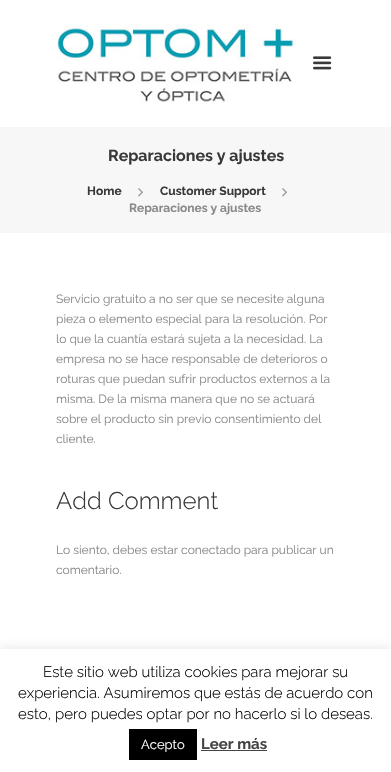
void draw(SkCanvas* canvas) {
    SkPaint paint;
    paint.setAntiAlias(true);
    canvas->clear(0xFFFFFFFF);
    canvas->drawImageRect(SkImages::DeferredFromEncodedData(SkData::MakeFromFileName("img1.png")), SkRect::MakeXYWH(57, 24, 239, 78), SkSamplingOptions());
    canvas->drawImageRect(SkImages::DeferredFromEncodedData(SkData::MakeFromFileName("img2.png")), SkRect::MakeXYWH(313, 56, 19, 14), SkSamplingOptions());
    paint.setColor(0xFFF7F7F7);
    canvas->drawRect(SkRect::MakeXYWH(0, 127, 391, 106), paint);
    SkFont font1(fontMgr->matchFamilyStyle("Raleway", SkFontStyle::Bold()), 16);
    font1.setSubpixel(true);
    paint.setColor(0xFF393939);
    canvas->drawString("Reparaciones y ajustes", 108, 161, font1, paint);
    SkFont font2(fontMgr->matchFamilyStyle("Raleway", SkFontStyle::Bold()), 12);
    font2.setSubpixel(true);
    canvas->drawString("Home", 87, 195, font2, paint);
    canvas->drawImageRect(SkImages::DeferredFromEncodedData(SkData::MakeFromFileName("img3.png")), SkRect::MakeXYWH(138, 188, 5, 9), SkSamplingOptions());
    canvas->drawString("Customer Support", 160, 195, font2, paint);
    canvas->drawImageRect(SkImages::DeferredFromEncodedData(SkData::MakeFromFileName("img3.png")), SkRect::MakeXYWH(282, 188, 5, 9), SkSamplingOptions());
    paint.setColor(0xFF8A8A8A);
    canvas->drawString("Reparaciones y ajustes", 129, 212, font2, paint);
    SkFont font3(fontMgr->matchFamilyStyle("Raleway", SkFontStyle::Normal()), 12);
    font3.setSubpixel(true);
    canvas->drawString("Servicio gratuito a no ser que se necesite alguna", 56, 303, font3, paint);
    canvas->drawString("pieza o elemento especial para la resolución. Por", 56, 323, font3, paint);
    canvas->drawString("lo que la cuantía estará sujeta a la necesidad. La", 56, 343, font3, paint);
    canvas->drawString("empresa no se hace responsable de deterioros o", 56, 363, font3, paint);
    canvas->drawString("roturas que puedan sufrir productos externos a la", 56, 383, font3, paint);
    canvas->drawString("misma. De la misma manera que no se actuará", 56, 403, font3, paint);
    canvas->drawString("sobre el producto sin previo consentimiento del", 56, 423, font3, paint);
    canvas->drawString("cliente.", 56, 443, font3, paint);
    SkFont font4(fontMgr->matchFamilyStyle("Raleway", SkFontStyle(300, SkFontStyle::kNormal_Width, SkFontStyle::kUpright_Slant)), 24);
    font4.setSubpixel(true);
    paint.setColor(0xFF393939);
    canvas->drawString("Add Comment", 56, 509, font4, paint);
    paint.setColor(0xFF8A8A8A);
    canvas->drawString("Lo siento, debes estar conectado para publicar un", 56, 554, font3, paint);
    canvas->drawString("comentario.", 56, 574, font3, paint);
    paint.setColor(0x4DACABAB);
    paint.setMaskFilter(SkMaskFilter::MakeBlur(kNormal_SkBlurStyle, 5));
    canvas->drawRect(SkRect::MakeXYWH(0, 648, 391, 123), paint);
    paint.setMaskFilter(nullptr);
    paint.setColor(0xFFFFFFFF);
    canvas->drawRect(SkRect::MakeXYWH(0, 649, 391, 123), paint);
    SkFont font5(fontMgr->matchFamilyStyle("Raleway", SkFontStyle(300, SkFontStyle::kNormal_Width, SkFontStyle::kUpright_Slant)), 15);
    font5.setSubpixel(true);
    paint.setColor(0xFF000000);
    canvas->drawString("Este sitio web utiliza cookies para mejorar su", 43, 677, font5, paint);
    canvas->drawString("experiencia. Asumiremos que estás de acuerdo con", 18, 698, font5, paint);
    canvas->drawString("esto, pero puedes optar por no hacerlo si lo deseas.", 18, 719, font5, paint);
    canvas->drawRect(SkRect::MakeXYWH(129, 729, 68, 31), paint);
    SkFont font6(fontMgr->matchFamilyStyle("Raleway", SkFontStyle::Normal()), 13);
    font6.setSubpixel(true);
    paint.setColor(0xFFFFFFFF);
    canvas->drawString("Acepto", 141, 749, font6, paint);
    SkFont font7(fontMgr->matchFamilyStyle("Raleway", SkFontStyle::Bold()), 15);
    font7.setSubpixel(true);
    paint.setColor(0xFF444444);
    canvas->drawString("Leer más", 201, 749, font7, paint);
    canvas->drawRect(SkRect::MakeXYWH(201, 750, 66, 1), paint);
}
